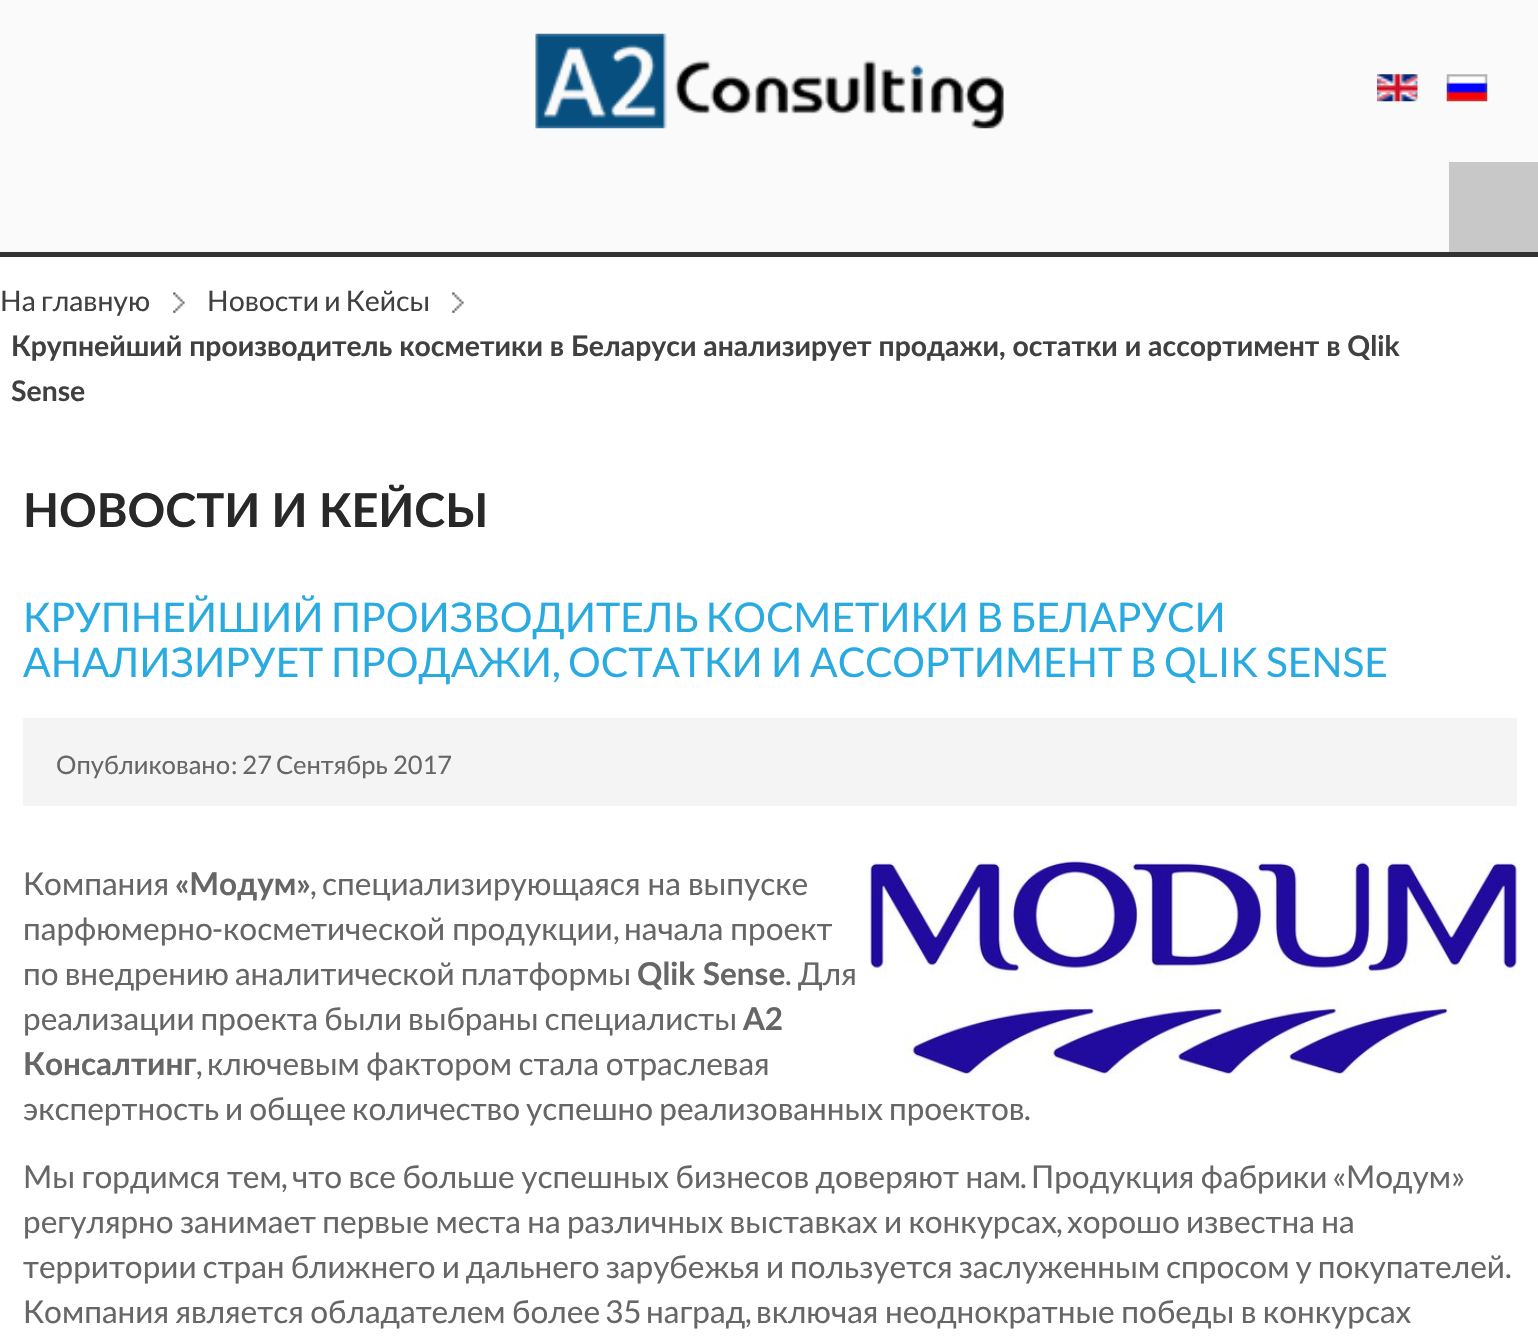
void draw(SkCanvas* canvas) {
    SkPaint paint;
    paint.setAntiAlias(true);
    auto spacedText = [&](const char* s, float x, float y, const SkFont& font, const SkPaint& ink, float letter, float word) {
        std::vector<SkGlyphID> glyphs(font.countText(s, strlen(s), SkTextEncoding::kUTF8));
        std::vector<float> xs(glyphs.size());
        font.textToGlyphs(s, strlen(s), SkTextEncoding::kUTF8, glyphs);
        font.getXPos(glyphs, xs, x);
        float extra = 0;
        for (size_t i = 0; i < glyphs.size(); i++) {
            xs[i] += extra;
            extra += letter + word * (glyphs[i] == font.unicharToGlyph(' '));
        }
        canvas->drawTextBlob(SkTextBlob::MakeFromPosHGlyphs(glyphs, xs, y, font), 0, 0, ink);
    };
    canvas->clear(0xFFFFFFFF);
    paint.setColor(0xFFFAFAFA);
    canvas->drawRect(SkRect::MakeXYWH(0, 0, 1538, 252), paint);
    paint.setColor(0xFF333333);
    canvas->drawRect(SkRect::MakeXYWH(0, 252, 1538, 5), paint);
    canvas->drawImageRect(SkImages::DeferredFromEncodedData(SkData::MakeFromFileName("img1.png")), SkRect::MakeXYWH(535, 33, 469, 96), SkSamplingOptions());
    canvas->drawImageRect(SkImages::DeferredFromEncodedData(SkData::MakeFromFileName("img2.png")), SkRect::MakeXYWH(1377, 74, 41, 28), SkSamplingOptions());
    canvas->drawImageRect(SkImages::DeferredFromEncodedData(SkData::MakeFromFileName("img3.png")), SkRect::MakeXYWH(1446, 74, 42, 28), SkSamplingOptions());
    paint.setColor(0xFFC8C8C8);
    canvas->drawRect(SkRect::MakeXYWH(1449, 162, 89, 90), paint);
    canvas->drawImageRect(SkImages::DeferredFromEncodedData(SkData::MakeFromFileName("img4.png")), SkRect::MakeXYWH(173, 292, 12, 21), SkSamplingOptions());
    SkFont font1(fontMgr->matchFamilyStyle("Lato", SkFontStyle::Normal()), 28.35f);
    font1.setSubpixel(true);
    paint.setColor(0xFF404040);
    spacedText("На главную", 0, 311, font1, paint, 0, -2);
    canvas->drawImageRect(SkImages::DeferredFromEncodedData(SkData::MakeFromFileName("img5.png")), SkRect::MakeXYWH(452, 292, 12, 21), SkSamplingOptions());
    spacedText("Новости и Кейсы", 207, 311, font1, paint, 0, -2);
    SkFont font2(fontMgr->matchFamilyStyle("Lato", SkFontStyle::Bold()), 28.35f);
    font2.setSubpixel(true);
    canvas->drawString("Крупнейший производитель косметики в Беларуси анализирует продажи, остатки и ассортимент в Qlik", 11, 356, font2, paint);
    canvas->drawString("Sense", 11, 401, font2, paint);
    SkFont font3(fontMgr->matchFamilyStyle("Lato", SkFontStyle::Bold()), 46.75f);
    font3.setSubpixel(true);
    paint.setColor(0xFF282828);
    canvas->drawString("НОВОСТИ И КЕЙСЫ", 23, 527, font3, paint);
    SkFont font4(fontMgr->matchFamilyStyle("Lato", SkFontStyle::Normal()), 40.95f);
    font4.setSubpixel(true);
    paint.setColor(0xFF29ABE2);
    spacedText("КРУПНЕЙШИЙ ПРОИЗВОДИТЕЛЬ КОСМЕТИКИ В БЕЛАРУСИ", 23, 632, font4, paint, 0, -3);
    canvas->drawString("АНАЛИЗИРУЕТ", 23, 677, font4, paint);
    canvas->drawString("ПРОДАЖИ", 331, 677, font4, paint);
    SkFont font5(fontMgr->matchFamilyStyle("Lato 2", SkFontStyle::Normal()), 40.95f);
    font5.setSubpixel(true);
    canvas->drawString(",", 552, 677, font5, paint);
    canvas->drawString("ОСТАТКИ", 568, 677, font4, paint);
    canvas->drawString("И", 771, 677, font4, paint);
    canvas->drawString("АССОРТИМЕНТ", 810, 677, font4, paint);
    canvas->drawString("В", 1130, 677, font4, paint);
    canvas->drawString("QLIK SENSE", 1164, 677, font5, paint);
    paint.setColor(0xFFF4F4F4);
    canvas->drawRect(SkRect::MakeXYWH(23, 718, 1494, 88), paint);
    SkFont font6(fontMgr->matchFamilyStyle("Lato", SkFontStyle::Normal()), 25.5f);
    font6.setSubpixel(true);
    paint.setColor(0xFF666666);
    canvas->drawString("Опубликовано", 56, 774, font6, paint);
    SkFont font7(fontMgr->matchFamilyStyle("Lato 2", SkFontStyle::Normal()), 25.5f);
    font7.setSubpixel(true);
    canvas->drawString(": 27", 231, 774, font7, paint);
    canvas->drawString("Сентябрь", 276, 774, font6, paint);
    canvas->drawString("2017", 393, 774, font7, paint);
    SkFont font8(fontMgr->matchFamilyStyle("Lato", SkFontStyle::Normal()), 31.5f);
    font8.setSubpixel(true);
    canvas->drawString("Компания", 23, 895, font8, paint);
    SkFont font9(fontMgr->matchFamilyStyle("Lato", SkFontStyle::Bold()), 31.5f);
    font9.setSubpixel(true);
    canvas->drawString("«Модум»", 175, 895, font9, paint);
    SkFont font10(fontMgr->matchFamilyStyle("Lato 2", SkFontStyle::Normal()), 31.5f);
    font10.setSubpixel(true);
    canvas->drawString(",", 310, 895, font10, paint);
    spacedText("специализирующаяся на выпуске", 322, 895, font8, paint, 0, -1);
    canvas->drawImageRect(SkImages::DeferredFromEncodedData(SkData::MakeFromFileName("img6.png")), SkRect::MakeXYWH(870, 861, 647, 213), SkSamplingOptions());
    canvas->drawString("парфюмерно", 23, 940, font8, paint);
    canvas->drawString("-", 212, 940, font10, paint);
    spacedText("косметической продукции", 223, 940, font8, paint, 0, -1);
    spacedText("начала проект", 624, 940, font8, paint, 0, -1);
    canvas->drawString(",", 613, 940, font10, paint);
    spacedText("по внедрению аналитической платформы", 23, 985, font8, paint, 0, -2);
    canvas->drawString("Qlik Sense", 637, 985, font9, paint);
    canvas->drawString(".", 785, 985, font10, paint);
    canvas->drawString("Для", 798, 985, font8, paint);
    spacedText("реализации проекта были выбраны специалисты", 23, 1030, font8, paint, 0, -2);
    canvas->drawString("А2", 743, 1030, font9, paint);
    canvas->drawString("Консалтинг", 23, 1075, font9, paint);
    canvas->drawString(",", 196, 1075, font10, paint);
    spacedText("ключевым фактором стала отраслевая", 207, 1075, font8, paint, 0, -1.5f);
    spacedText("экспертность и общее количество успешно реализованных проектов", 23, 1120, font8, paint, 0, -2);
    canvas->drawString(".", 1024, 1120, font10, paint);
    spacedText("Мы гордимся тем", 23, 1188, font8, paint, 0, -1.5f);
    spacedText("что все больше успешных бизнесов доверяют нам", 292, 1188, font8, paint, 0, -1.5f);
    spacedText("Продукция фабрики", 1031, 1188, font8, paint, 0, -1.5f);
    canvas->drawString("«", 1332, 1188, font10, paint);
    canvas->drawString("Модум", 1346, 1188, font8, paint);
    canvas->drawString("»", 1451, 1188, font10, paint);
    canvas->drawString(",", 281, 1188, font10, paint);
    canvas->drawString(".", 1020, 1188, font10, paint);
    spacedText("регулярно занимает первые места на различных выставках и конкурсах", 23, 1233, font8, paint, 0, -1.75f);
    canvas->drawString(",", 1056, 1233, font10, paint);
    spacedText("хорошо известна на", 1067, 1233, font8, paint, 0, -1.75f);
    spacedText("территории стран ближнего и дальнего зарубежья и пользуется заслуженным спросом у покупателей", 23, 1278, font8, paint, 0, -2);
    canvas->drawString(".", 1505, 1278, font10, paint);
    spacedText("Компания является обладателем более", 23, 1323, font8, paint, 0, -1.5f);
    canvas->drawString("35", 605, 1323, font10, paint);
    canvas->drawString("наград", 646, 1323, font8, paint);
    canvas->drawString(",", 745, 1323, font10, paint);
    spacedText("включая неоднократные победы в конкурсах", 756, 1323, font8, paint, 0, -1.5f);
}
